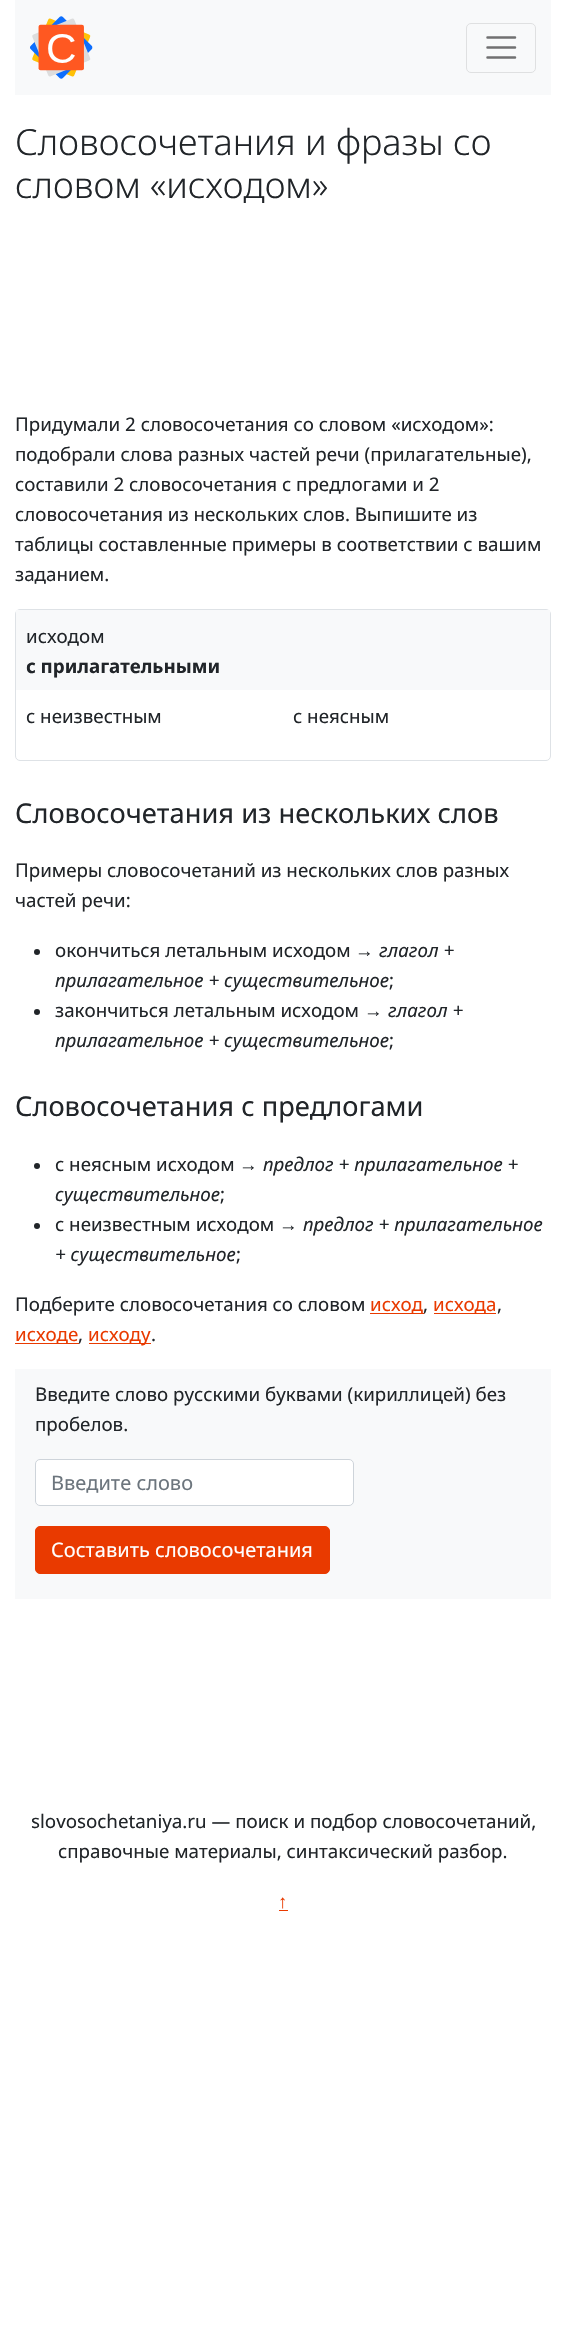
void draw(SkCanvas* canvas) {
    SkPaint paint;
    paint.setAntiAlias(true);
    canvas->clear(0xFFFFFFFF);
    paint.setColor(0xFFF8F9FA);
    canvas->drawRect(SkRect::MakeXYWH(15, 0, 536, 95), paint);
    canvas->drawImageRect(SkImages::DeferredFromEncodedData(SkData::MakeFromFileName("img1.png")), SkRect::MakeXYWH(30, 16, 63, 63), SkSamplingOptions());
    paint.setStyle(SkPaint::kStroke_Style);
    paint.setStrokeWidth(1);
    paint.setColor(0xFFDFE0E1);
    canvas->drawRoundRect(SkRect::MakeXYWH(466.5f, 23.5f, 69, 49), 4.5f, 4.5f, paint);
    paint.setStrokeWidth(2.5f);
    paint.setStrokeCap(SkPaint::kRound_Cap);
    paint.setColor(0xFF707071);
    canvas->drawPath(SkPathBuilder().moveTo(487.5f, 37.5f).lineTo(515, 37.5f).moveTo(487.5f, 47.5f).lineTo(515, 47.5f).moveTo(487.5f, 57.5f).lineTo(515, 57.5f).detach(), paint);
    SkFont font1(fontMgr->matchFamilyStyle("Noto Sans", SkFontStyle(300, SkFontStyle::kNormal_Width, SkFontStyle::kUpright_Slant)), 36);
    font1.setSubpixel(true);
    paint.setStyle(SkPaint::kFill_Style);
    paint.setColor(0xFF212529);
    canvas->drawString("Словосочетания и фразы со", 15, 155, font1, paint);
    canvas->drawString("словом «исходом»", 15, 198, font1, paint);
    SkFont font2(fontMgr->matchFamilyStyle("Noto Sans", SkFontStyle::Normal()), 18.75f);
    font2.setSubpixel(true);
    canvas->drawString("Придумали 2 словосочетания со словом «исходом»:", 15, 431, font2, paint);
    canvas->drawString("подобрали слова разных частей речи (прилагательные),", 15, 461, font2, paint);
    canvas->drawString("составили 2 словосочетания с предлогами и 2", 15, 491, font2, paint);
    canvas->drawString("словосочетания из нескольких слов. Выпишите из", 15, 521, font2, paint);
    canvas->drawString("таблицы составленные примеры в соответствии с вашим", 15, 551, font2, paint);
    canvas->drawString("заданием.", 15, 581, font2, paint);
    paint.setStyle(SkPaint::kStroke_Style);
    paint.setStrokeWidth(1);
    paint.setStrokeCap(SkPaint::kButt_Cap);
    paint.setColor(0xFFDEE2E6);
    canvas->drawRoundRect(SkRect::MakeXYWH(15.5f, 609.5f, 535, 151), 4.5f, 4.5f, paint);
    paint.setStyle(SkPaint::kFill_Style);
    paint.setColor(0xFFF8F9FA);
    canvas->drawRect(SkRect::MakeXYWH(16, 610, 534, 80), paint);
    paint.setColor(0xFF212529);
    canvas->drawString("исходом", 26, 643, font2, paint);
    SkFont font3(fontMgr->matchFamilyStyle("Noto Sans", SkFontStyle::Bold()), 18.75f);
    font3.setSubpixel(true);
    canvas->drawString("c прилагательными", 26, 673, font3, paint);
    canvas->drawString("с неизвестным", 26, 723, font2, paint);
    canvas->drawString("с неясным", 293, 723, font2, paint);
    SkFont font4(fontMgr->matchFamilyStyle("Noto Sans", SkFontStyle::Normal()), 27.25f);
    font4.setSubpixel(true);
    canvas->drawString("Словосочетания из нескольких слов", 15, 823, font4, paint);
    canvas->drawString("Примеры словосочетаний из нескольких слов разных", 15, 877, font2, paint);
    canvas->drawString("частей речи:", 15, 907, font2, paint);
    canvas->drawCircle(37, 952, 3, paint);
    canvas->drawString("окончиться летальным исходом", 55, 957, font2, paint);
    SkFont font5(fontMgr->matchFamilyStyle("Liberation Sans", SkFontStyle::Italic()), 18.75f);
    font5.setSubpixel(true);
    canvas->drawString("→", 355, 957, font5, paint);
    SkFont font6(fontMgr->matchFamilyStyle("Noto Sans", SkFontStyle::Italic()), 18.75f);
    font6.setSubpixel(true);
    canvas->drawString("глагол +", 379, 957, font6, paint);
    canvas->drawString("прилагательное + существительное", 55, 987, font6, paint);
    canvas->drawString(";", 389, 987, font2, paint);
    canvas->drawCircle(37, 1012, 3, paint);
    canvas->drawString("закончиться летальным исходом", 55, 1017, font2, paint);
    canvas->drawString("→", 364, 1017, font5, paint);
    canvas->drawString("глагол +", 388, 1017, font6, paint);
    canvas->drawString("прилагательное + существительное", 55, 1047, font6, paint);
    canvas->drawString(";", 389, 1047, font2, paint);
    canvas->drawString("Словосочетания с предлогами", 15, 1116, font4, paint);
    canvas->drawCircle(37, 1166, 3, paint);
    canvas->drawString("с неясным исходом", 55, 1171, font2, paint);
    canvas->drawString("→", 239, 1171, font5, paint);
    canvas->drawString("предлог + прилагательное +", 263, 1171, font6, paint);
    canvas->drawString("существительное", 55, 1201, font6, paint);
    canvas->drawString(";", 220, 1201, font2, paint);
    canvas->drawCircle(37, 1226, 3, paint);
    canvas->drawString("с неизвестным исходом", 55, 1231, font2, paint);
    canvas->drawString("→", 279, 1231, font5, paint);
    canvas->drawString("предлог + прилагательное", 303, 1231, font6, paint);
    canvas->drawString("+ существительное", 55, 1261, font6, paint);
    canvas->drawString(";", 236, 1261, font2, paint);
    canvas->drawString("Подберите словосочетания со словом", 15, 1311, font2, paint);
    paint.setColor(0xFFE93A00);
    canvas->drawRect(SkRect::MakeXYWH(370, 1313, 54, 1), paint);
    canvas->drawString("исход", 370, 1311, font2, paint);
    paint.setColor(0xFF212529);
    canvas->drawString(",", 423, 1311, font2, paint);
    paint.setColor(0xFFE93A00);
    canvas->drawRect(SkRect::MakeXYWH(434, 1313, 62, 1), paint);
    canvas->drawString("исхода", 433, 1311, font2, paint);
    paint.setColor(0xFF212529);
    canvas->drawString(",", 497, 1311, font2, paint);
    paint.setColor(0xFFE93A00);
    canvas->drawRect(SkRect::MakeXYWH(15, 1343, 64, 1), paint);
    canvas->drawString("исходе", 15, 1341, font2, paint);
    paint.setColor(0xFF212529);
    canvas->drawString(",", 78, 1341, font2, paint);
    paint.setColor(0xFFE93A00);
    canvas->drawRect(SkRect::MakeXYWH(89, 1343, 62, 1), paint);
    canvas->drawString("исходу", 88, 1341, font2, paint);
    paint.setColor(0xFF212529);
    canvas->drawString(".", 151, 1341, font2, paint);
    paint.setColor(0xFFF8F9FA);
    canvas->drawRect(SkRect::MakeXYWH(15, 1369, 536, 230), paint);
    paint.setColor(0xFF212529);
    canvas->drawString("Введите слово русскими буквами (кириллицей) без", 35, 1401, font2, paint);
    canvas->drawString("пробелов.", 35, 1431, font2, paint);
    paint.setColor(0xFFFFFFFF);
    canvas->drawRoundRect(SkRect::MakeXYWH(35.5f, 1459.5f, 318, 46), 4.5f, 4.5f, paint);
    paint.setStyle(SkPaint::kStroke_Style);
    paint.setColor(0xFFCED4DA);
    canvas->drawRoundRect(SkRect::MakeXYWH(35.5f, 1459.5f, 318, 46), 4.5f, 4.5f, paint);
    SkFont font7(fontMgr->matchFamilyStyle("Noto Sans", SkFontStyle::Normal()), 20);
    font7.setSubpixel(true);
    paint.setStyle(SkPaint::kFill_Style);
    paint.setColor(0xFF6C757D);
    canvas->drawString("Введите слово", 51, 1490, font7, paint);
    paint.setColor(0xFFE93A00);
    canvas->drawRoundRect(SkRect::MakeXYWH(35.5f, 1526.5f, 294, 47), 4.5f, 4.5f, paint);
    paint.setStyle(SkPaint::kStroke_Style);
    canvas->drawRoundRect(SkRect::MakeXYWH(35.5f, 1526.5f, 294, 47), 4.5f, 4.5f, paint);
    paint.setStyle(SkPaint::kFill_Style);
    paint.setColor(0xFFFFFFFF);
    canvas->drawString("Составить словосочетания", 51, 1557, font7, paint);
    paint.setColor(0xFF212529);
    canvas->drawString("slovosochetaniya.ru — поиск и подбор словосочетаний,", 31, 1828, font2, paint);
    canvas->drawString("справочные материалы, синтаксический разбор.", 58, 1858, font2, paint);
    SkFont font8(fontMgr->matchFamilyStyle("Liberation Sans", SkFontStyle::Normal()), 18.75f);
    font8.setSubpixel(true);
    paint.setColor(0xFFE93A00);
    canvas->drawString("↑", 278, 1908, font8, paint);
    canvas->drawRect(SkRect::MakeXYWH(279, 1910, 9, 1), paint);
}
